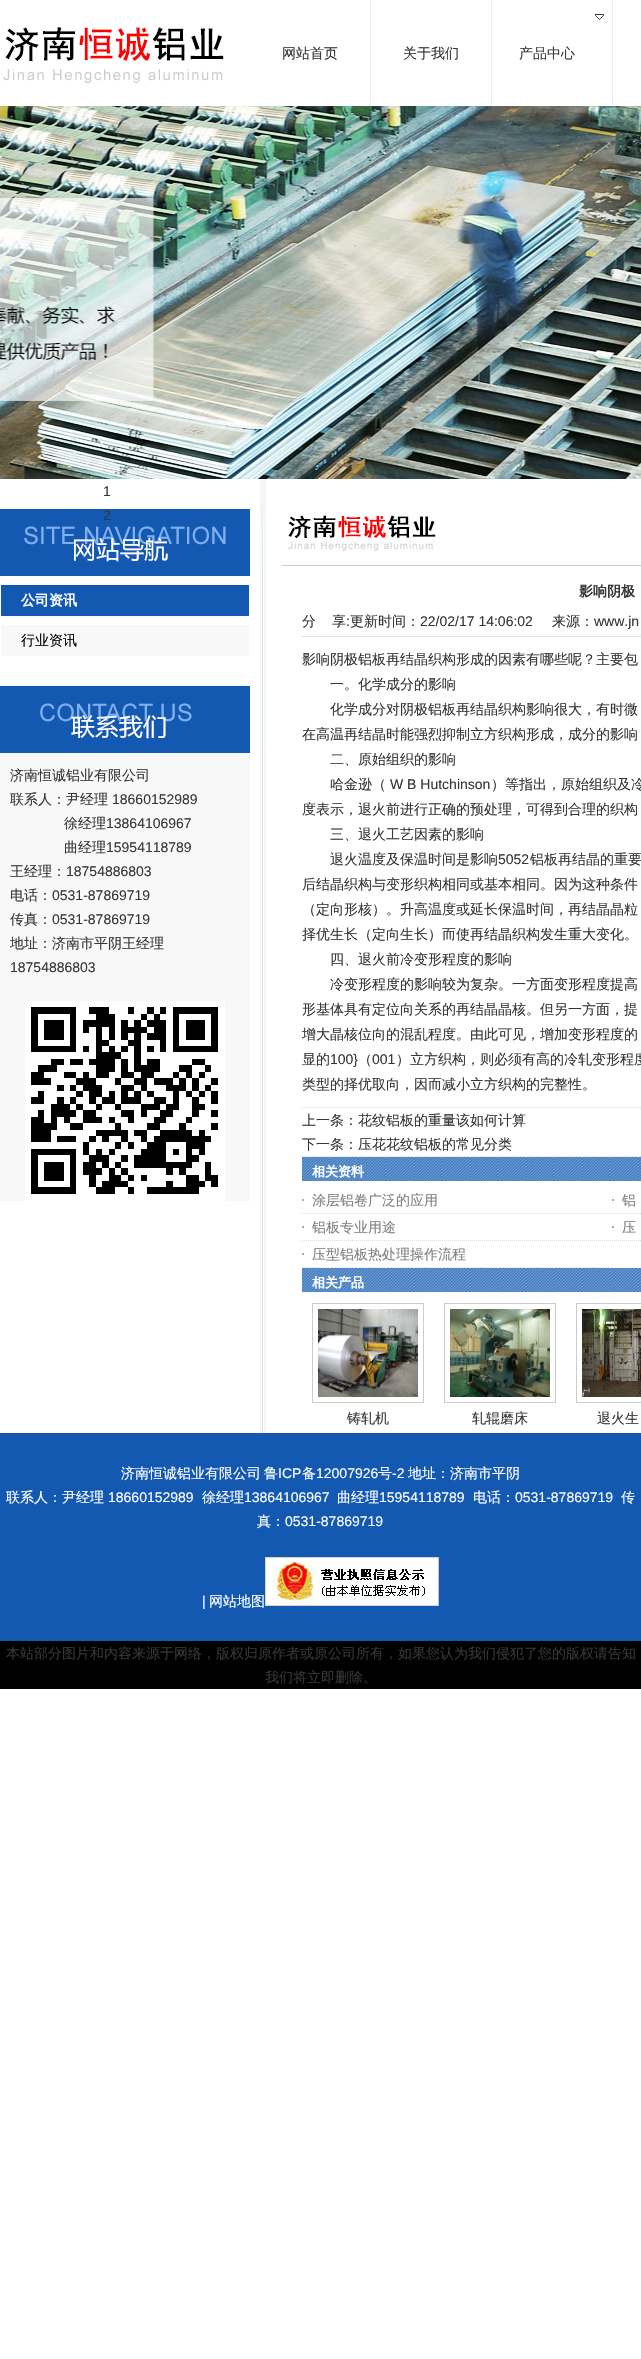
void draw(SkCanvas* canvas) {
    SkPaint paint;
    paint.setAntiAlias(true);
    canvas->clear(0xFFFFFFFF);
    canvas->drawImageRect(SkImages::DeferredFromEncodedData(SkData::MakeFromFileName("img1.png")), SkRect::MakeXYWH(3, 27, 221, 56), SkSamplingOptions());
    paint.setColor(0xFFEEEEEE);
    canvas->drawRect(SkRect::MakeXYWH(370, 0, 1, 106), paint);
    SkFont font1(fontMgr->matchFamilyStyle("WenQuanYi Zen Hei", SkFontStyle(500, SkFontStyle::kNormal_Width, SkFontStyle::kUpright_Slant)), 14);
    font1.setSubpixel(true);
    paint.setColor(0xFF363636);
    canvas->drawString("网站首页", 282, 58, font1, paint);
    paint.setColor(0xFFEEEEEE);
    canvas->drawRect(SkRect::MakeXYWH(491, 0, 1, 106), paint);
    paint.setColor(0xFF363636);
    canvas->drawString("关于我们", 403, 58, font1, paint);
    paint.setColor(0xFFEEEEEE);
    canvas->drawRect(SkRect::MakeXYWH(612, 0, 1, 106), paint);
    canvas->drawImageRect(SkImages::DeferredFromEncodedData(SkData::MakeFromFileName("img2.png")), SkRect::MakeXYWH(595, 14, 9, 6), SkSamplingOptions());
    paint.setColor(0xFF363636);
    canvas->drawString("产品中心", 519, 58, font1, paint);
    canvas->drawImageRect(SkImages::DeferredFromEncodedData(SkData::MakeFromFileName("img3.png")), SkRect::MakeXYWH(0, 106, 641, 373), SkSamplingOptions());
    SkFont font2(fontMgr->matchFamilyStyle("Liberation Sans", SkFontStyle::Normal()), 14);
    font2.setSubpixel(true);
    canvas->drawString("1", 103, 496, font2, paint);
    canvas->drawImageRect(SkImages::DeferredFromEncodedData(SkData::MakeFromFileName("img5.png")), SkRect::MakeXYWH(0, 509, 250, 67), SkSamplingOptions());
    canvas->drawString("2", 103, 520, font2, paint);
    canvas->drawImageRect(SkImages::DeferredFromEncodedData(SkData::MakeFromFileName("img4.png")), SkRect::MakeXYWH(260, 479, 6, 954), SkSamplingOptions());
    paint.setColor(0xFF1359B2);
    canvas->drawRect(SkRect::MakeXYWH(1, 585, 248, 31), paint);
    SkFont font3(fontMgr->matchFamilyStyle("WenQuanYi Zen Hei", SkFontStyle::Bold()), 14);
    font3.setSubpixel(true);
    paint.setColor(0xFFFFFFFF);
    canvas->drawString("公司资讯", 21, 605, font3, paint);
    paint.setColor(0xFFF8F8F8);
    canvas->drawRect(SkRect::MakeXYWH(1, 625, 248, 31), paint);
    paint.setColor(0xFF000000);
    canvas->drawString("行业资讯", 21, 645, font1, paint);
    canvas->drawImageRect(SkImages::DeferredFromEncodedData(SkData::MakeFromFileName("img6.png")), SkRect::MakeXYWH(0, 686, 250, 67), SkSamplingOptions());
    paint.setColor(0xFFF8F8F8);
    canvas->drawRect(SkRect::MakeXYWH(0, 753, 250, 448), paint);
    canvas->drawImageRect(SkImages::DeferredFromEncodedData(SkData::MakeFromFileName("img7.png")), SkRect::MakeXYWH(25, 1001, 200, 200), SkSamplingOptions());
    paint.setColor(0xFF363636);
    canvas->drawString("济南恒诚铝业有限公司", 10, 780, font1, paint);
    canvas->drawString("联系人：尹经理", 10, 804, font1, paint);
    canvas->drawString("18660152989", 112, 804, font2, paint);
    canvas->drawString("徐经理", 64, 828, font1, paint);
    canvas->drawString("13864106967", 106, 828, font2, paint);
    canvas->drawString("曲经理", 64, 852, font1, paint);
    canvas->drawString("15954118789", 106, 852, font2, paint);
    canvas->drawString("王经理：", 10, 876, font1, paint);
    canvas->drawString("18754886803", 66, 876, font2, paint);
    canvas->drawString("电话：", 10, 900, font1, paint);
    canvas->drawString("0531-87869719", 52, 900, font2, paint);
    canvas->drawString("传真：", 10, 924, font1, paint);
    canvas->drawString("0531-87869719", 52, 924, font2, paint);
    canvas->drawString("地址：济南市平阴王经理", 10, 948, font1, paint);
    canvas->drawString("18754886803", 10, 972, font2, paint);
    canvas->drawImageRect(SkImages::DeferredFromEncodedData(SkData::MakeFromFileName("img8.png")), SkRect::MakeXYWH(288, 515, 148, 36), SkSamplingOptions());
    paint.setColor(0xFFCCCCCC);
    canvas->drawRect(SkRect::MakeXYWH(282, 565, 359, 1), paint);
    paint.setColor(0xFF363636);
    canvas->drawString("影响阴极", 579, 596, font3, paint);
    paint.setColor(0xFFDDDDDD);
    canvas->drawRect(SkRect::MakeXYWH(302, 636, 339, 1), paint);
    paint.setColor(0xFF363636);
    canvas->drawString("分", 302, 626, font1, paint);
    canvas->drawString("享", 332, 626, font1, paint);
    canvas->drawString(":", 346, 626, font2, paint);
    canvas->drawString("更新时间：", 350, 626, font1, paint);
    canvas->drawString("22/02/17 14:06:02", 420, 626, font2, paint);
    canvas->drawString("来源：", 552, 626, font1, paint);
    canvas->drawString("www.jn", 594, 626, font2, paint);
    canvas->drawString("影响阴极铝板再结晶织构形成的因素有哪些呢？主要包", 302, 664, font1, paint);
    canvas->drawString("一。化学成分的影响", 330, 689, font1, paint);
    canvas->drawString("化学成分对阴极铝板再结晶织构影响很大，有时微", 330, 714, font1, paint);
    canvas->drawString("在高温再结晶时能强烈抑制立方织构形成，成分的影响", 302, 739, font1, paint);
    canvas->drawString("二、原始组织的影响", 330, 764, font1, paint);
    canvas->drawString("哈金逊（", 330, 789, font1, paint);
    canvas->drawString("W B Hutchinson", 390, 789, font2, paint);
    canvas->drawString("）等指出，原始组织及冷", 491, 789, font1, paint);
    canvas->drawString("度表示，退火前进行正确的预处理，可得到合理的织构", 302, 814, font1, paint);
    canvas->drawString("三、退火工艺因素的影响", 330, 839, font1, paint);
    canvas->drawString("退火温度及保温时间是影响", 330, 864, font1, paint);
    canvas->drawString("5052", 498, 864, font2, paint);
    canvas->drawString("铝板再结晶的重要", 530, 864, font1, paint);
    canvas->drawString("后结晶织构与变形织构相同或基本相同。因为这种条件", 302, 889, font1, paint);
    canvas->drawString("（定向形核）。升高温度或延长保温时间，再结晶晶粒", 302, 914, font1, paint);
    canvas->drawString("择优生长（定向生长）而使再结晶织构发生重大变化。", 302, 939, font1, paint);
    canvas->drawString("四、退火前冷变形程度的影响", 330, 964, font1, paint);
    canvas->drawString("冷变形程度的影响较为复杂。一方面变形程度提高", 330, 989, font1, paint);
    canvas->drawString("形基体具有定位向关系的再结晶晶核。但另一方面，提", 302, 1014, font1, paint);
    canvas->drawString("增大晶核位向的混乱程度。由此可见，增加变形程度的", 302, 1039, font1, paint);
    canvas->drawString("显的", 302, 1064, font1, paint);
    canvas->drawString("100}", 330, 1064, font2, paint);
    canvas->drawString("（", 358, 1064, font1, paint);
    canvas->drawString("001", 372, 1064, font2, paint);
    canvas->drawString("）立方织构，则必须有高的冷轧变形程度", 396, 1064, font1, paint);
    canvas->drawString("类型的择优取向，因而减小立方织构的完整性。", 302, 1089, font1, paint);
    paint.setStyle(SkPaint::kStroke_Style);
    paint.setStrokeWidth(1);
    paint.setColor(0xFFDDDDDD);
    paint.setPathEffect(SkDashPathEffect::Make({{1, 1}}, 0));
    canvas->drawPath(SkPathBuilder().moveTo(302, 1107.5f).lineTo(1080, 1107.5f).detach(), paint);
    paint.setPathEffect(nullptr);
    paint.setPathEffect(SkDashPathEffect::Make({{1, 1}}, 0));
    canvas->drawPath(SkPathBuilder().moveTo(302, 1156.5f).lineTo(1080, 1156.5f).detach(), paint);
    paint.setPathEffect(nullptr);
    paint.setStyle(SkPaint::kFill_Style);
    paint.setColor(0xFF363636);
    canvas->drawString("上一条：", 302, 1125, font1, paint);
    canvas->drawString("花纹铝板的重量该如何计算", 358, 1125, font1, paint);
    canvas->drawString("下一条：", 302, 1149, font1, paint);
    canvas->drawString("压花花纹铝板的常见分类", 358, 1149, font1, paint);
    canvas->drawImageRect(SkImages::DeferredFromEncodedData(SkData::MakeFromFileName("img9.png")), SkRect::MakeXYWH(302, 1157, 339, 24), SkSamplingOptions());
    SkFont font4(fontMgr->matchFamilyStyle("WenQuanYi Zen Hei", SkFontStyle::Bold()), 13);
    font4.setSubpixel(true);
    paint.setColor(0xFFFFFFFF);
    canvas->drawString("相关资料", 312, 1176, font4, paint);
    paint.setColor(0xFFAAAAAA);
    canvas->drawRect(SkRect::MakeXYWH(302, 1199, 2, 2), paint);
    paint.setStyle(SkPaint::kStroke_Style);
    paint.setColor(0xFFDDDDDD);
    paint.setPathEffect(SkDashPathEffect::Make({{1, 1}}, 0));
    canvas->drawPath(SkPathBuilder().moveTo(302, 1213.5f).lineTo(612, 1213.5f).detach(), paint);
    paint.setPathEffect(nullptr);
    paint.setStyle(SkPaint::kFill_Style);
    paint.setColor(0xFF808080);
    canvas->drawString("涂层铝卷广泛的应用", 312, 1205, font1, paint);
    paint.setColor(0xFFAAAAAA);
    canvas->drawRect(SkRect::MakeXYWH(612, 1199, 2, 2), paint);
    paint.setStyle(SkPaint::kStroke_Style);
    paint.setColor(0xFFDDDDDD);
    paint.setPathEffect(SkDashPathEffect::Make({{1, 1}}, 0));
    canvas->drawPath(SkPathBuilder().moveTo(612, 1213.5f).lineTo(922, 1213.5f).detach(), paint);
    paint.setPathEffect(nullptr);
    paint.setStyle(SkPaint::kFill_Style);
    paint.setColor(0xFF808080);
    canvas->drawString("铝", 622, 1205, font1, paint);
    paint.setColor(0xFFAAAAAA);
    canvas->drawRect(SkRect::MakeXYWH(302, 1226, 2, 2), paint);
    paint.setStyle(SkPaint::kStroke_Style);
    paint.setColor(0xFFDDDDDD);
    paint.setPathEffect(SkDashPathEffect::Make({{1, 1}}, 0));
    canvas->drawPath(SkPathBuilder().moveTo(302, 1240.5f).lineTo(612, 1240.5f).detach(), paint);
    paint.setPathEffect(nullptr);
    paint.setStyle(SkPaint::kFill_Style);
    paint.setColor(0xFF808080);
    canvas->drawString("铝板专业用途", 312, 1232, font1, paint);
    paint.setColor(0xFFAAAAAA);
    canvas->drawRect(SkRect::MakeXYWH(612, 1226, 2, 2), paint);
    paint.setStyle(SkPaint::kStroke_Style);
    paint.setColor(0xFFDDDDDD);
    paint.setPathEffect(SkDashPathEffect::Make({{1, 1}}, 0));
    canvas->drawPath(SkPathBuilder().moveTo(612, 1240.5f).lineTo(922, 1240.5f).detach(), paint);
    paint.setPathEffect(nullptr);
    paint.setStyle(SkPaint::kFill_Style);
    paint.setColor(0xFF808080);
    canvas->drawString("压", 622, 1232, font1, paint);
    paint.setColor(0xFFAAAAAA);
    canvas->drawRect(SkRect::MakeXYWH(302, 1253, 2, 2), paint);
    paint.setStyle(SkPaint::kStroke_Style);
    paint.setColor(0xFFDDDDDD);
    paint.setPathEffect(SkDashPathEffect::Make({{1, 1}}, 0));
    canvas->drawPath(SkPathBuilder().moveTo(302, 1267.5f).lineTo(612, 1267.5f).detach(), paint);
    paint.setPathEffect(nullptr);
    paint.setStyle(SkPaint::kFill_Style);
    paint.setColor(0xFF808080);
    canvas->drawString("压型铝板热处理操作流程", 312, 1259, font1, paint);
    canvas->drawImageRect(SkImages::DeferredFromEncodedData(SkData::MakeFromFileName("img9.png")), SkRect::MakeXYWH(302, 1268, 339, 24), SkSamplingOptions());
    paint.setColor(0xFFFFFFFF);
    canvas->drawString("相关产品", 312, 1287, font4, paint);
    paint.setStyle(SkPaint::kStroke_Style);
    paint.setColor(0xFFCCCCCC);
    canvas->drawRect(SkRect::MakeXYWH(312.5f, 1303.5f, 111, 99), paint);
    canvas->drawImageRect(SkImages::DeferredFromEncodedData(SkData::MakeFromFileName("img10.png")), SkRect::MakeXYWH(318, 1309, 100, 88), SkSamplingOptions());
    paint.setStyle(SkPaint::kFill_Style);
    paint.setColor(0xFF363636);
    canvas->drawString("铸轧机", 347, 1423, font1, paint);
    paint.setStyle(SkPaint::kStroke_Style);
    paint.setColor(0xFFCCCCCC);
    canvas->drawRect(SkRect::MakeXYWH(444.5f, 1303.5f, 111, 99), paint);
    canvas->drawImageRect(SkImages::DeferredFromEncodedData(SkData::MakeFromFileName("img11.png")), SkRect::MakeXYWH(450, 1309, 100, 88), SkSamplingOptions());
    paint.setStyle(SkPaint::kFill_Style);
    paint.setColor(0xFF363636);
    canvas->drawString("轧辊磨床", 472, 1423, font1, paint);
    paint.setStyle(SkPaint::kStroke_Style);
    paint.setColor(0xFFCCCCCC);
    canvas->drawRect(SkRect::MakeXYWH(576.5f, 1303.5f, 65, 99), paint);
    canvas->drawImageRect(SkImages::DeferredFromEncodedData(SkData::MakeFromFileName("img12.png")), SkRect::MakeXYWH(582, 1309, 59, 88), SkSamplingOptions());
    paint.setStyle(SkPaint::kFill_Style);
    paint.setColor(0xFF363636);
    canvas->drawString("退火生", 597, 1423, font1, paint);
    paint.setColor(0xFF1359B2);
    canvas->drawRect(SkRect::MakeXYWH(0, 1433, 641, 208), paint);
    paint.setColor(0xFFFFFFFF);
    canvas->drawString("济南恒诚铝业有限公司", 121, 1478, font1, paint);
    canvas->drawString("鲁", 264, 1478, font1, paint);
    canvas->drawString("ICP", 278, 1478, font2, paint);
    canvas->drawString("备", 302, 1478, font1, paint);
    canvas->drawString("12007926", 316, 1478, font2, paint);
    canvas->drawString("号", 378, 1478, font1, paint);
    canvas->drawString("-2", 392, 1478, font2, paint);
    canvas->drawString("地址：济南市平阴", 408, 1478, font1, paint);
    canvas->drawString("联系人：尹经理", 6, 1502, font1, paint);
    canvas->drawString("18660152989", 108, 1502, font2, paint);
    canvas->drawString("徐经理", 202, 1502, font1, paint);
    canvas->drawString("13864106967", 244, 1502, font2, paint);
    canvas->drawString("曲经理", 337, 1502, font1, paint);
    canvas->drawString("15954118789", 379, 1502, font2, paint);
    canvas->drawString("电话：", 473, 1502, font1, paint);
    canvas->drawString("0531-87869719", 515, 1502, font2, paint);
    canvas->drawString("传", 621, 1502, font1, paint);
    canvas->drawString("真：", 257, 1526, font1, paint);
    canvas->drawString("0531-87869719", 285, 1526, font2, paint);
    canvas->drawString("|", 202, 1606, font2, paint);
    canvas->drawString("网站地图", 209, 1606, font1, paint);
    canvas->drawImageRect(SkImages::DeferredFromEncodedData(SkData::MakeFromFileName("img13.png")), SkRect::MakeXYWH(265, 1557, 174, 49), SkSamplingOptions());
    paint.setColor(0xFF000000);
    canvas->drawRect(SkRect::MakeXYWH(0, 1641, 641, 48), paint);
    paint.setColor(0xFF363636);
    canvas->drawString("本站部分图片和内容来源于网络，版权归原作者或原公司所有，如果您认为我们侵犯了您的版权请告知", 6, 1658, font1, paint);
    canvas->drawString("我们将立即删除。", 265, 1682, font1, paint);
}
